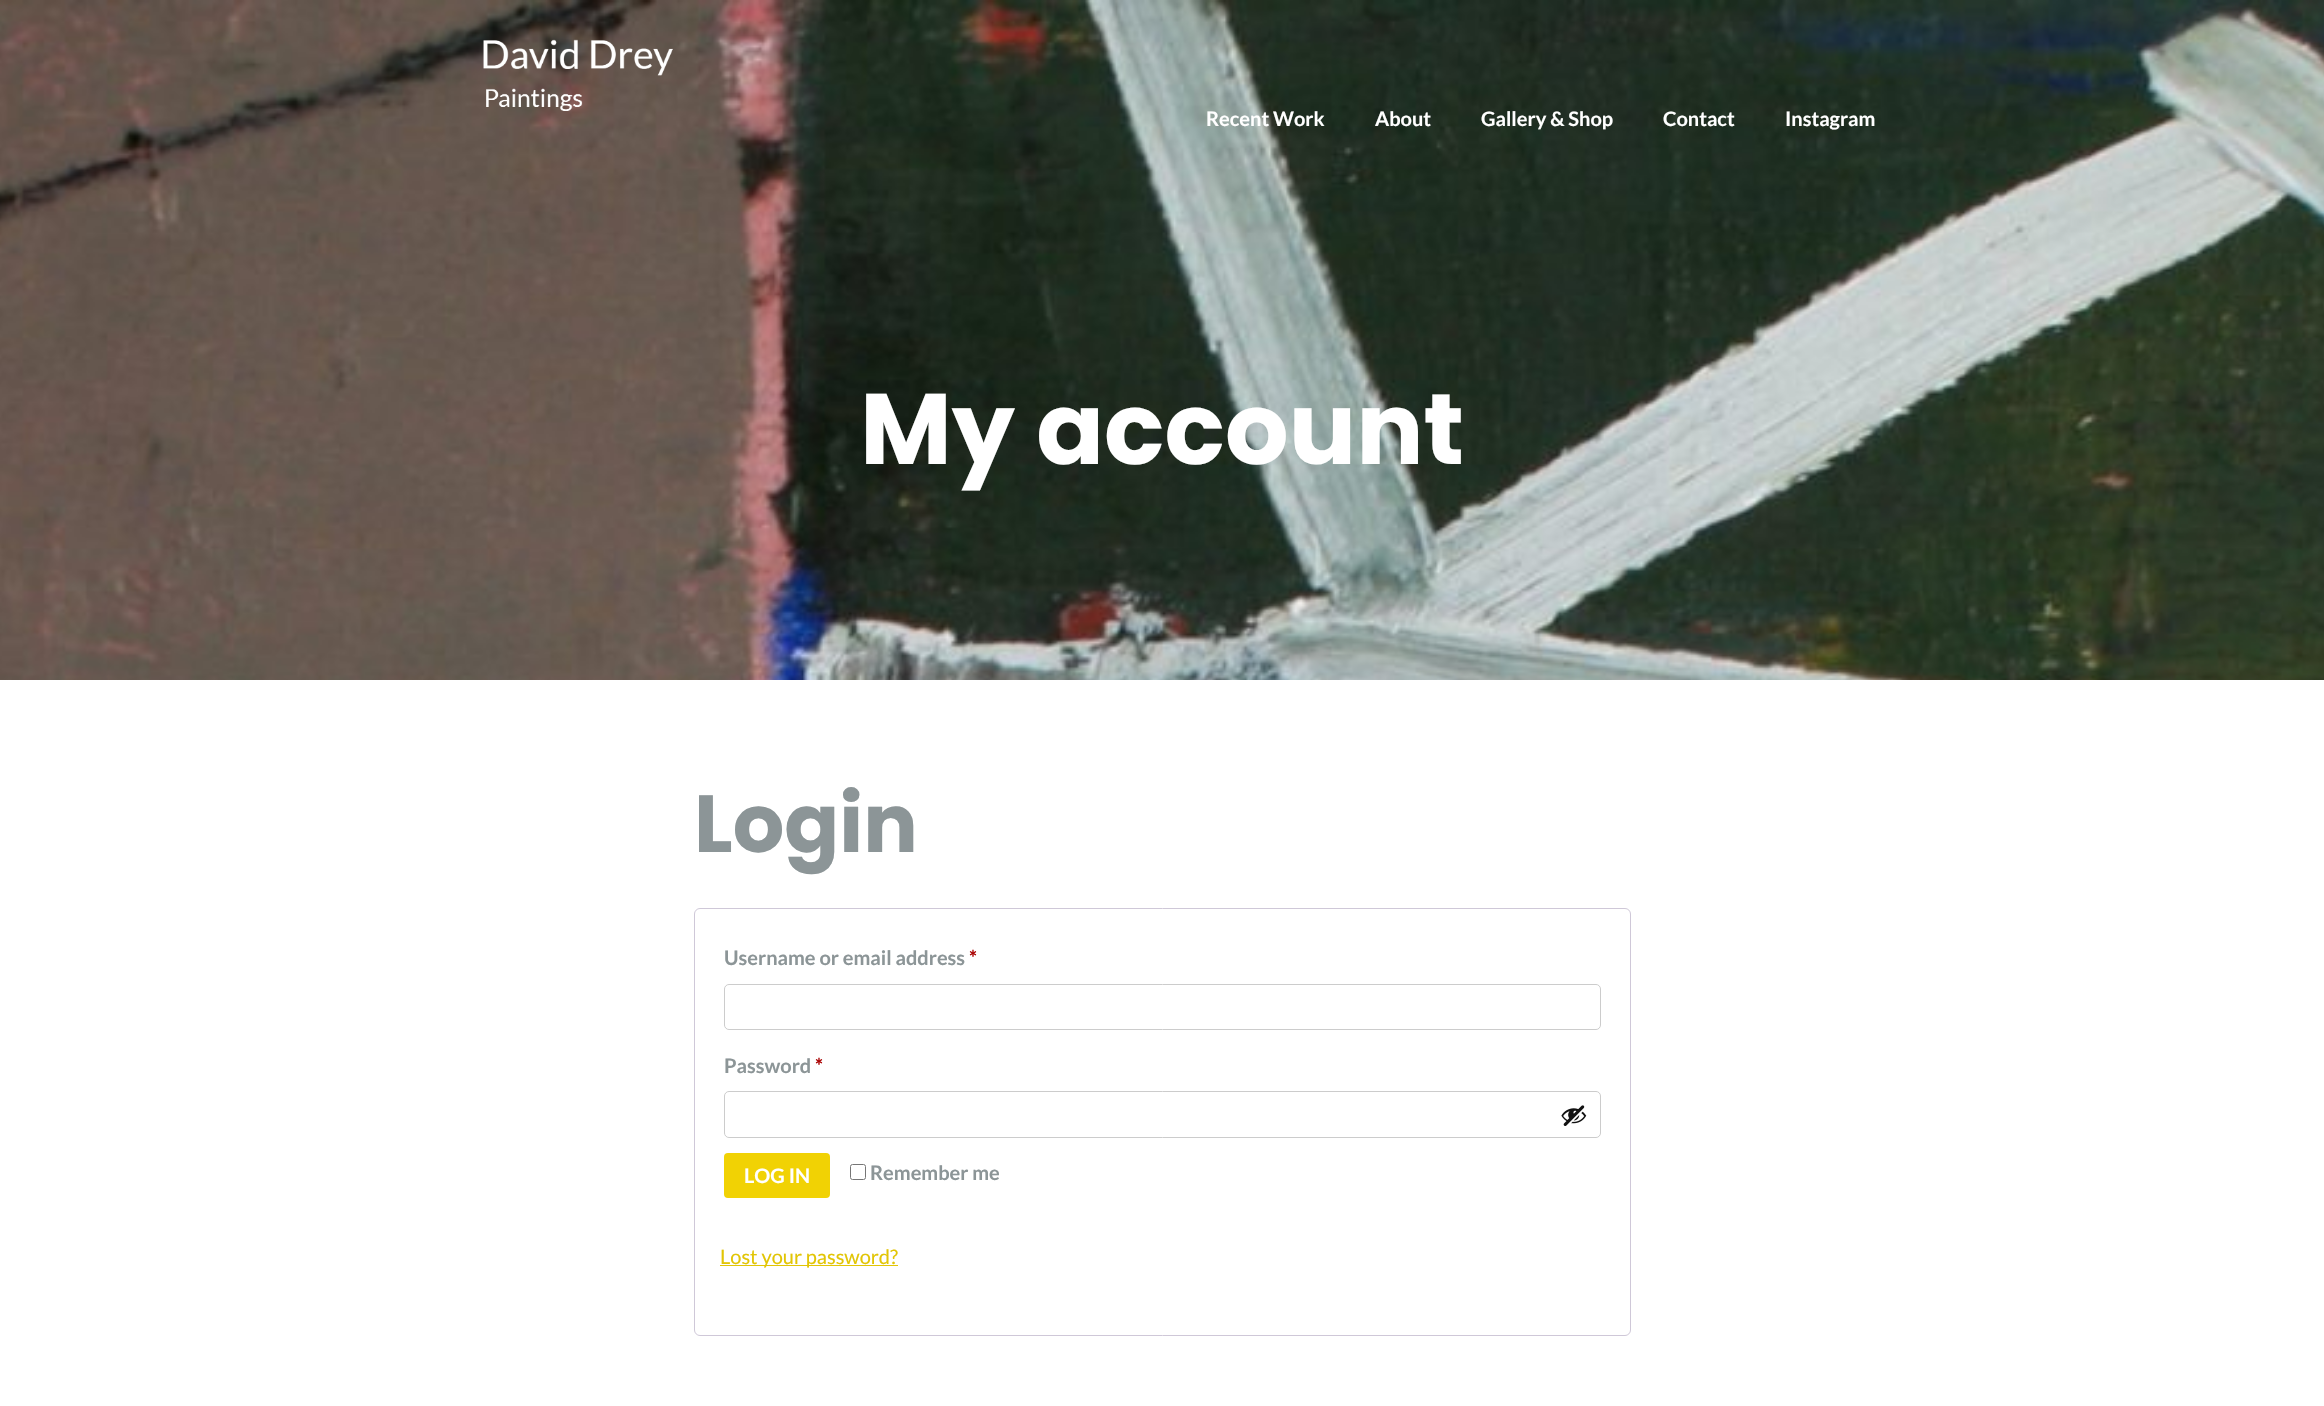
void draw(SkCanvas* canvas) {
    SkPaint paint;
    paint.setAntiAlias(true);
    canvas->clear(0xFFFFFFFF);
    canvas->drawImageRect(SkImages::DeferredFromEncodedData(SkData::MakeFromFileName("img1.png")), SkRect::MakeXYWH(0, 0, 2324, 680), SkSamplingOptions());
    canvas->drawImageRect(SkImages::DeferredFromEncodedData(SkData::MakeFromFileName("img2.png")), SkRect::MakeXYWH(483, 39, 190, 72), SkSamplingOptions());
    SkFont font1(fontMgr->matchFamilyStyle("Lato", SkFontStyle::Bold()), 20);
    font1.setSubpixel(true);
    paint.setColor(0xFFFFFFFF);
    canvas->drawString("Recent Work", 1206, 126, font1, paint);
    canvas->drawString("About", 1375, 126, font1, paint);
    canvas->drawString("Gallery & Shop", 1481, 126, font1, paint);
    canvas->drawString("Contact", 1663, 126, font1, paint);
    canvas->drawString("Instagram", 1785, 126, font1, paint);
    SkFont font2(fontMgr->matchFamilyStyle("Poppins", SkFontStyle::Bold()), 100);
    font2.setSubpixel(true);
    canvas->drawString("My account", 860, 464, font2, paint);
    SkFont font3(fontMgr->matchFamilyStyle("Poppins", SkFontStyle::Bold()), 81);
    font3.setSubpixel(true);
    paint.setColor(0xFF8C9597);
    canvas->drawString("Login", 694, 852, font3, paint);
    paint.setStyle(SkPaint::kStroke_Style);
    paint.setStrokeWidth(1);
    paint.setColor(0xFFCFC8D8);
    canvas->drawRoundRect(SkRect::MakeXYWH(694.5f, 908.5f, 936, 427), 5.5f, 5.5f, paint);
    paint.setStyle(SkPaint::kFill_Style);
    paint.setColor(0xFF8C9597);
    canvas->drawString("Username or email address", 724, 965, font1, paint);
    paint.setColor(0xFFAA0000);
    canvas->drawString("*", 969, 965, font1, paint);
    paint.setStyle(SkPaint::kStroke_Style);
    paint.setColor(0xFFCCCCCC);
    canvas->drawRoundRect(SkRect::MakeXYWH(724.5f, 984.5f, 876, 45), 4.5f, 4.5f, paint);
    paint.setStyle(SkPaint::kFill_Style);
    paint.setColor(0xFF8C9597);
    canvas->drawString("Password", 724, 1073, font1, paint);
    paint.setColor(0xFFAA0000);
    canvas->drawString("*", 815, 1073, font1, paint);
    paint.setStyle(SkPaint::kStroke_Style);
    paint.setColor(0xFFCCCCCC);
    canvas->drawRoundRect(SkRect::MakeXYWH(724.5f, 1091.5f, 876, 46), 4.5f, 4.5f, paint);
    canvas->drawImageRect(SkImages::DeferredFromEncodedData(SkData::MakeFromFileName("img3.png")), SkRect::MakeXYWH(1561, 1105, 26, 21), SkSamplingOptions());
    paint.setStyle(SkPaint::kFill_Style);
    paint.setColor(0xFFF1D204);
    canvas->drawRoundRect(SkRect::MakeXYWH(724, 1153, 106, 45), 4, 4, paint);
    paint.setColor(0xFFFFFFFF);
    canvas->drawString("LOG IN", 744, 1183, font1, paint);
    paint.setStyle(SkPaint::kStroke_Style);
    paint.setColor(0xFF767676);
    canvas->drawRoundRect(SkRect::MakeXYWH(850.5f, 1164.5f, 15, 15), 2, 2, paint);
    paint.setStyle(SkPaint::kFill_Style);
    paint.setColor(0xFF8C9597);
    canvas->drawString("Remember me", 870, 1180, font1, paint);
    paint.setColor(0xFFE2C504);
    canvas->drawRect(SkRect::MakeXYWH(720, 1265, 178, 1), paint);
    SkFont font4(fontMgr->matchFamilyStyle("Lato", SkFontStyle::Normal()), 20);
    font4.setSubpixel(true);
    canvas->drawString("Lost your password?", 720, 1264, font4, paint);
}
